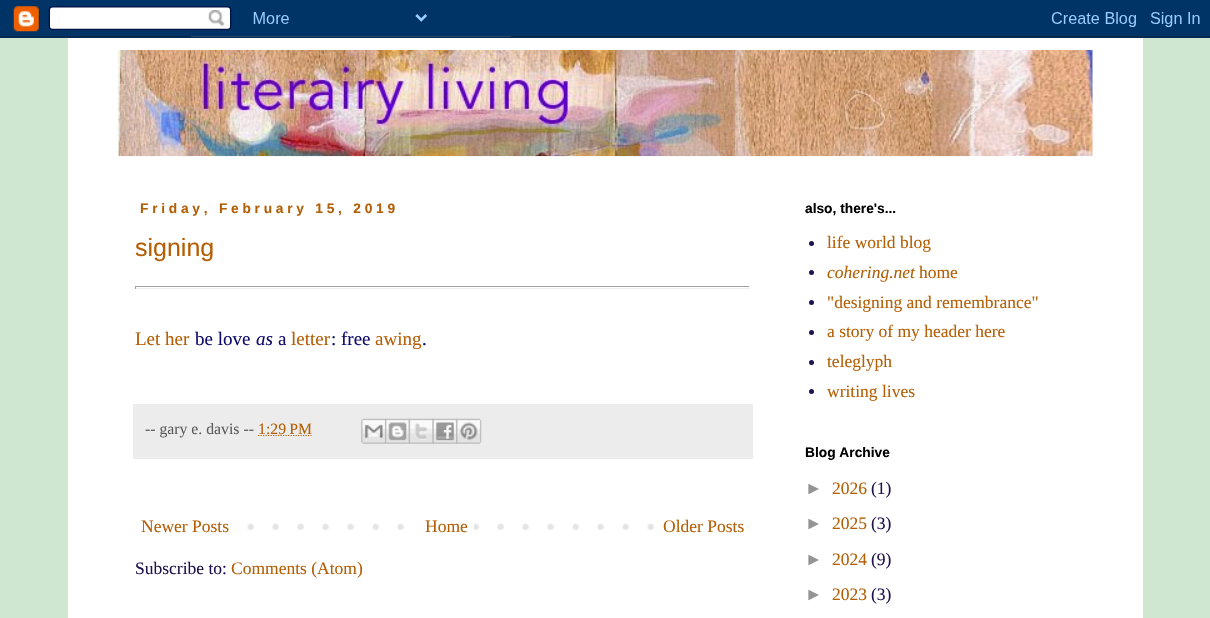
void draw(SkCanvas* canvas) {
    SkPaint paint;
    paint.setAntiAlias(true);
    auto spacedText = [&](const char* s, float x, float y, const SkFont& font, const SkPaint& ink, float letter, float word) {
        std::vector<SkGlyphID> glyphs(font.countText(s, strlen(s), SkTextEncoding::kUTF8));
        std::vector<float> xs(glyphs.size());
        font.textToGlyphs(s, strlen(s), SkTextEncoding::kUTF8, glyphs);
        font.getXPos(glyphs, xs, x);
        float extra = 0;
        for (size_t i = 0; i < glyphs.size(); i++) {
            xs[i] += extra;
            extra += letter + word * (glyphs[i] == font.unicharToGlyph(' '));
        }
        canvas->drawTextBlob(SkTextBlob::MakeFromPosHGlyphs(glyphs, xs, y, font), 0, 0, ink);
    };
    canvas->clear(0xFFCFE7D1);
    canvas->drawImageRect(SkImages::DeferredFromEncodedData(SkData::MakeFromFileName("img1.png")), SkRect::MakeXYWH(0, 0, 1210, 38), SkSamplingOptions());
    paint.setColor(0xFFFFFFFF);
    canvas->drawRect(SkRect::MakeXYWH(68, 38, 1075, 580), paint);
    canvas->drawImageRect(SkImages::DeferredFromEncodedData(SkData::MakeFromFileName("img2.png")), SkRect::MakeXYWH(117, 50, 976, 107), SkSamplingOptions());
    SkFont font1(fontMgr->matchFamilyStyle("Liberation Sans", SkFontStyle::Bold()), 13.75f);
    font1.setSubpixel(true);
    paint.setColor(0xFFB45F06);
    spacedText("Friday, February 15, 2019", 140, 213, font1, paint, 3.75f, 0);
    SkFont font2(fontMgr->matchFamilyStyle("Liberation Sans", SkFontStyle::Normal()), 25);
    font2.setSubpixel(true);
    canvas->drawString("signing", 135, 256, font2, paint);
    paint.setColor(0xFF9F9F9F);
    canvas->drawRect(SkRect::MakeXYWH(135, 286, 615, 1), paint);
    paint.setColor(0xFFEEEEEE);
    canvas->drawRect(SkRect::MakeXYWH(749, 286, 1, 3), paint);
    canvas->drawRect(SkRect::MakeXYWH(135, 288, 615, 1), paint);
    paint.setColor(0xFF9F9F9F);
    canvas->drawRect(SkRect::MakeXYWH(135, 286, 1, 3), paint);
    SkFont font3(fontMgr->matchFamilyStyle("Liberation Serif", SkFontStyle::Normal()), 19);
    font3.setSubpixel(true);
    paint.setColor(0xFFB45F06);
    canvas->drawString("Let her", 135, 345, font3, paint);
    paint.setColor(0xFF0E0B6B);
    canvas->drawString("be love", 195, 345, font3, paint);
    SkFont font4(fontMgr->matchFamilyStyle("Liberation Serif", SkFontStyle::Italic()), 19);
    font4.setSubpixel(true);
    canvas->drawString("as", 256, 345, font4, paint);
    canvas->drawString("a", 278, 345, font3, paint);
    paint.setColor(0xFFB45F06);
    canvas->drawString("letter", 291, 345, font3, paint);
    paint.setColor(0xFF0E0B6B);
    canvas->drawString(": free", 331, 345, font3, paint);
    paint.setColor(0xFFB45F06);
    canvas->drawString("awing", 375, 345, font3, paint);
    paint.setColor(0xFF0E0B6B);
    canvas->drawString(".", 422, 345, font3, paint);
    paint.setColor(0xFFECECEC);
    canvas->drawRect(SkRect::MakeXYWH(133, 404, 620, 55), paint);
    SkFont font5(fontMgr->matchFamilyStyle("Liberation Serif", SkFontStyle::Normal()), 15.75f);
    font5.setSubpixel(true);
    paint.setColor(0xFF5B5B5B);
    canvas->drawString("-- gary e. davis --", 145, 434, font5, paint);
    paint.setStyle(SkPaint::kStroke_Style);
    paint.setStrokeWidth(1.2f);
    paint.setColor(0xFFB45F06);
    paint.setPathEffect(SkDashPathEffect::Make({{1.25f, 1.25f}}, 0));
    canvas->drawPath(SkPathBuilder().moveTo(258, 435.5f).lineTo(311.5f, 435.5f).detach(), paint);
    paint.setPathEffect(nullptr);
    paint.setStyle(SkPaint::kFill_Style);
    canvas->drawString("1:29 PM", 258, 434, font5, paint);
    canvas->drawImageRect(SkImages::DeferredFromEncodedData(SkData::MakeFromFileName("img3.png")), SkRect::MakeXYWH(361, 418, 26, 26), SkSamplingOptions());
    canvas->drawImageRect(SkImages::DeferredFromEncodedData(SkData::MakeFromFileName("img4.png")), SkRect::MakeXYWH(385, 418, 25, 26), SkSamplingOptions());
    canvas->drawImageRect(SkImages::DeferredFromEncodedData(SkData::MakeFromFileName("img5.png")), SkRect::MakeXYWH(408, 418, 26, 26), SkSamplingOptions());
    canvas->drawImageRect(SkImages::DeferredFromEncodedData(SkData::MakeFromFileName("img6.png")), SkRect::MakeXYWH(432, 418, 26, 26), SkSamplingOptions());
    canvas->drawImageRect(SkImages::DeferredFromEncodedData(SkData::MakeFromFileName("img7.png")), SkRect::MakeXYWH(456, 418, 26, 26), SkSamplingOptions());
    canvas->drawImageRect(SkImages::DeferredFromEncodedData(SkData::MakeFromFileName("img8.png")), SkRect::MakeXYWH(247, 523, 407, 7), SkSamplingOptions());
    SkFont font6(fontMgr->matchFamilyStyle("Liberation Serif", SkFontStyle::Normal()), 17.5f);
    font6.setSubpixel(true);
    canvas->drawString("Newer Posts", 141, 532, font6, paint);
    paint.setColor(0xFFFFFFFF);
    canvas->drawRect(SkRect::MakeXYWH(422, 523, 52, 7), paint);
    paint.setColor(0xFFB45F06);
    canvas->drawString("Home", 425, 532, font6, paint);
    canvas->drawString("Older Posts", 663, 532, font6, paint);
    paint.setColor(0xFF20124D);
    canvas->drawString("Subscribe to:", 135, 574, font6, paint);
    paint.setColor(0xFFB45F06);
    canvas->drawString("Comments (Atom)", 231, 574, font6, paint);
    paint.setColor(0xFF000000);
    canvas->drawString("also, there's...", 805, 213, font1, paint);
    paint.setColor(0xFF20124D);
    canvas->drawCircle(811.5f, 243.5f, 2.5f, paint);
    paint.setColor(0xFFB45F06);
    canvas->drawString("life world blog", 827, 248, font6, paint);
    paint.setColor(0xFF20124D);
    canvas->drawCircle(811.5f, 272.5f, 2.5f, paint);
    SkFont font7(fontMgr->matchFamilyStyle("Liberation Serif", SkFontStyle::Italic()), 17.5f);
    font7.setSubpixel(true);
    paint.setColor(0xFFB45F06);
    canvas->drawString("cohering.net", 827, 278, font7, paint);
    canvas->drawString("home", 919, 278, font6, paint);
    paint.setColor(0xFF20124D);
    canvas->drawCircle(811.5f, 302.5f, 2.5f, paint);
    paint.setColor(0xFFB45F06);
    canvas->drawString("\"designing and remembrance\"", 827, 308, font6, paint);
    paint.setColor(0xFF20124D);
    canvas->drawCircle(811.5f, 332.5f, 2.5f, paint);
    paint.setColor(0xFFB45F06);
    canvas->drawString("a story of my header here", 827, 337, font6, paint);
    paint.setColor(0xFF20124D);
    canvas->drawCircle(811.5f, 362.5f, 2.5f, paint);
    paint.setColor(0xFFB45F06);
    canvas->drawString("teleglyph", 827, 367, font6, paint);
    paint.setColor(0xFF20124D);
    canvas->drawCircle(811.5f, 391.5f, 2.5f, paint);
    paint.setColor(0xFFB45F06);
    canvas->drawString("writing lives", 827, 397, font6, paint);
    paint.setColor(0xFF000000);
    canvas->drawString("Blog Archive", 805, 457, font1, paint);
    SkFont font8(fontMgr->matchFamilyStyle("Liberation Sans", SkFontStyle::Normal()), 17.5f);
    font8.setSubpixel(true);
    paint.setColor(0xFF949494);
    canvas->drawString("►", 805, 494, font8, paint);
    paint.setColor(0xFFB45F06);
    canvas->drawString("2026", 832, 494, font6, paint);
    paint.setColor(0xFF20124D);
    canvas->drawString("(1)", 871, 494, font6, paint);
    paint.setColor(0xFF949494);
    canvas->drawString("►", 805, 529, font8, paint);
    paint.setColor(0xFFB45F06);
    canvas->drawString("2025", 832, 529, font6, paint);
    paint.setColor(0xFF20124D);
    canvas->drawString("(3)", 871, 529, font6, paint);
    paint.setColor(0xFF949494);
    canvas->drawString("►", 805, 565, font8, paint);
    paint.setColor(0xFFB45F06);
    canvas->drawString("2024", 832, 565, font6, paint);
    paint.setColor(0xFF20124D);
    canvas->drawString("(9)", 871, 565, font6, paint);
    paint.setColor(0xFF949494);
    canvas->drawString("►", 805, 600, font8, paint);
    paint.setColor(0xFFB45F06);
    canvas->drawString("2023", 832, 600, font6, paint);
    paint.setColor(0xFF20124D);
    canvas->drawString("(3)", 871, 600, font6, paint);
}
